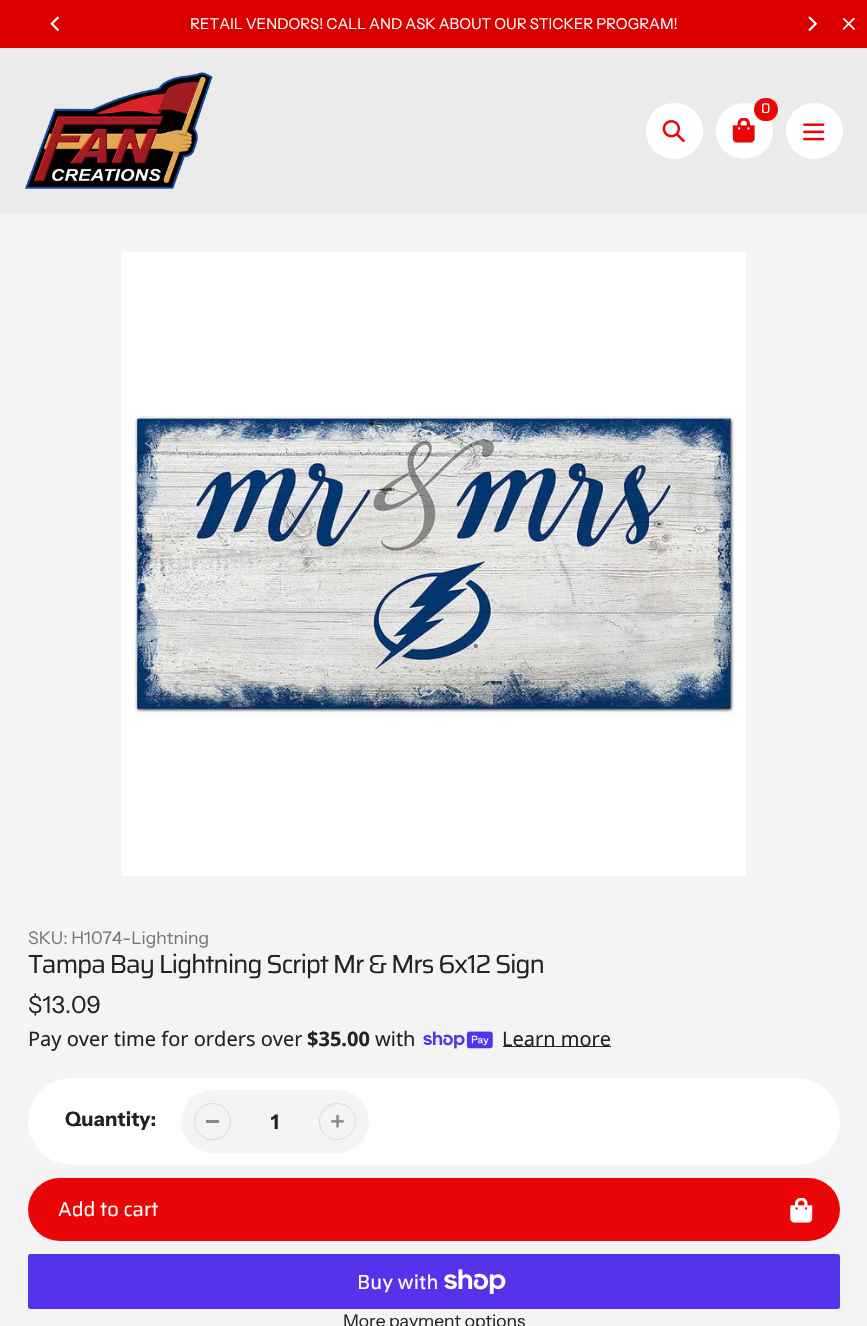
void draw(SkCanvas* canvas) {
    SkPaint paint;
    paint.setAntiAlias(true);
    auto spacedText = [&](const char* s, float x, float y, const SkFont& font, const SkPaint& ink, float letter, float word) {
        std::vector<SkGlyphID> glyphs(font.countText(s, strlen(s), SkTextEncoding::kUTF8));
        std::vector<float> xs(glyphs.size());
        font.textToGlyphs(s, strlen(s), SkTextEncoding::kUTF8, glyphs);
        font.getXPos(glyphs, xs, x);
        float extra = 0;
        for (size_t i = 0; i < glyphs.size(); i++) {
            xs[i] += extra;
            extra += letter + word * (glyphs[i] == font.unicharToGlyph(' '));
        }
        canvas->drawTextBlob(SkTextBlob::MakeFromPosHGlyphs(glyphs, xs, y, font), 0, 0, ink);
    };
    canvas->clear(0xFFF4F4F4);
    paint.setColor(0xFFDA0000);
    canvas->drawRect(SkRect::MakeXYWH(0, 0, 867, 48), paint);
    canvas->drawImageRect(SkImages::DeferredFromEncodedData(SkData::MakeFromFileName("img1.png")), SkRect::MakeXYWH(50, 16, 10, 15), SkSamplingOptions());
    SkFont font1(fontMgr->matchFamilyStyle("Instrument Sans", SkFontStyle::Normal()), 15);
    font1.setSubpixel(true);
    paint.setColor(0xFFFFFFFF);
    canvas->drawString("RETAIL VENDORS! CALL AND ASK ABOUT OUR STICKER PROGRAM!", 190, 29, font1, paint);
    canvas->drawImageRect(SkImages::DeferredFromEncodedData(SkData::MakeFromFileName("img2.png")), SkRect::MakeXYWH(808, 16, 10, 15), SkSamplingOptions());
    canvas->drawImageRect(SkImages::DeferredFromEncodedData(SkData::MakeFromFileName("img3.png")), SkRect::MakeXYWH(843, 18, 12, 12), SkSamplingOptions());
    paint.setColor(0xFFEBEBEB);
    canvas->drawRect(SkRect::MakeXYWH(0, 48, 867, 166), paint);
    canvas->drawImageRect(SkImages::DeferredFromEncodedData(SkData::MakeFromFileName("img4.png")), SkRect::MakeXYWH(25, 72, 188, 117), SkSamplingOptions());
    paint.setColor(0xFFFFFFFF);
    canvas->drawRoundRect(SkRect::MakeXYWH(646, 103, 57, 56), 28, 28, paint);
    canvas->drawImageRect(SkImages::DeferredFromEncodedData(SkData::MakeFromFileName("img5.png")), SkRect::MakeXYWH(662, 120, 23, 23), SkSamplingOptions());
    canvas->drawRoundRect(SkRect::MakeXYWH(716, 103, 57, 56), 28, 28, paint);
    canvas->drawImageRect(SkImages::DeferredFromEncodedData(SkData::MakeFromFileName("img6.png")), SkRect::MakeXYWH(732, 118, 23, 25), SkSamplingOptions());
    paint.setColor(0xFFEA0606);
    canvas->drawRoundRect(SkRect::MakeXYWH(754, 98, 24, 23), 11.5f, 11.5f, paint);
    SkFont font2(fontMgr->matchFamilyStyle("Saira", SkFontStyle::Normal()), 14);
    font2.setSubpixel(true);
    paint.setColor(0xFFFFFFFF);
    canvas->drawString("0", 761, 113, font2, paint);
    canvas->drawRoundRect(SkRect::MakeXYWH(786, 103, 57, 56), 28, 28, paint);
    canvas->drawImageRect(SkImages::DeferredFromEncodedData(SkData::MakeFromFileName("img7.png")), SkRect::MakeXYWH(803, 123, 22, 18), SkSamplingOptions());
    canvas->drawImageRect(SkImages::DeferredFromEncodedData(SkData::MakeFromFileName("img8.png")), SkRect::MakeXYWH(121, 251, 625, 625), SkSamplingOptions());
    SkFont font3(fontMgr->matchFamilyStyle("Instrument Sans", SkFontStyle::Normal()), 17.5f);
    font3.setSubpixel(true);
    paint.setColor(0xFF777777);
    canvas->drawString("SKU: H1074-Lightning", 28, 944, font3, paint);
    SkFont font4(fontMgr->matchFamilyStyle("Saira", SkFontStyle::Normal()), 26);
    font4.setSubpixel(true);
    paint.setColor(0xFF232323);
    spacedText("Tampa Bay Lightning Script Mr & Mrs 6x12 Sign", 28, 973, font4, paint, -1.25f, 0);
    SkFont font5(fontMgr->matchFamilyStyle("Instrument Sans", SkFontStyle::Normal()), 23.5f);
    font5.setSubpixel(true);
    canvas->drawString("$13.09", 28, 1013, font5, paint);
    SkFont font6(fontMgr->matchFamilyStyle("Noto Sans", SkFontStyle::Normal()), 20);
    font6.setSubpixel(true);
    canvas->drawString("Pay over time for orders over", 28, 1046, font6, paint);
    SkFont font7(fontMgr->matchFamilyStyle("Noto Sans", SkFontStyle::Bold()), 20);
    font7.setSubpixel(true);
    canvas->drawString("$35.00", 307, 1046, font7, paint);
    canvas->drawString("with", 375, 1046, font6, paint);
    canvas->drawImageRect(SkImages::DeferredFromEncodedData(SkData::MakeFromFileName("img9.png")), SkRect::MakeXYWH(423, 1031, 70, 18), SkSamplingOptions());
    canvas->drawRect(SkRect::MakeXYWH(503, 1046, 108, 1), paint);
    canvas->drawString("Learn more", 502, 1046, font6, paint);
    paint.setColor(0xFFFFFFFF);
    canvas->drawRoundRect(SkRect::MakeXYWH(28, 1078, 812, 87), 43.5f, 43.5f, paint);
    SkFont font8(fontMgr->matchFamilyStyle("Instrument Sans", SkFontStyle::Bold()), 20);
    font8.setSubpixel(true);
    paint.setColor(0xFF232323);
    canvas->drawString("Quantity:", 65, 1126, font8, paint);
    paint.setColor(0xFFF4F4F4);
    canvas->drawRoundRect(SkRect::MakeXYWH(181, 1090, 188, 63), 31.5f, 31.5f, paint);
    paint.setColor(0xFF898989);
    canvas->drawRect(SkRect::MakeXYWH(206, 1120, 13, 3), paint);
    paint.setStyle(SkPaint::kStroke_Style);
    paint.setStrokeWidth(1);
    paint.setColor(0xFFD7DBDB);
    canvas->drawCircle(212.5f, 1121.5f, 18, paint);
    paint.setStyle(SkPaint::kFill_Style);
    paint.setColor(0xFF232323);
    canvas->drawString("1", 271, 1129, font8, paint);
    canvas->drawImageRect(SkImages::DeferredFromEncodedData(SkData::MakeFromFileName("img10.png")), SkRect::MakeXYWH(331, 1115, 13, 13), SkSamplingOptions());
    paint.setStyle(SkPaint::kStroke_Style);
    paint.setColor(0xFFD7DBDB);
    canvas->drawCircle(337.5f, 1121.5f, 18, paint);
    paint.setStyle(SkPaint::kFill_Style);
    paint.setColor(0xFFEA0606);
    canvas->drawRoundRect(SkRect::MakeXYWH(28, 1178, 812, 63), 31.5f, 31.5f, paint);
    SkFont font9(fontMgr->matchFamilyStyle("Saira", SkFontStyle::Normal()), 20);
    font9.setSubpixel(true);
    paint.setColor(0xFFFFFFFF);
    canvas->drawString("Add to cart", 58, 1216, font9, paint);
    canvas->drawImageRect(SkImages::DeferredFromEncodedData(SkData::MakeFromFileName("img11.png")), SkRect::MakeXYWH(790, 1198, 23, 25), SkSamplingOptions());
    paint.setColor(0xFF5433EB);
    canvas->drawRoundRect(SkRect::MakeXYWH(28, 1254, 812, 55), 2.5f, 2.5f, paint);
    SkFont font10(fontMgr->matchFamilyStyle("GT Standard", SkFontStyle::Normal()), 20);
    font10.setSubpixel(true);
    paint.setColor(0xFFFFFFFF);
    canvas->drawString("Buy with", 357, 1289, font10, paint);
    canvas->drawImageRect(SkImages::DeferredFromEncodedData(SkData::MakeFromFileName("img12.png")), SkRect::MakeXYWH(444, 1269, 62, 25), SkSamplingOptions());
    paint.setColor(0xFF232323);
    canvas->drawString("More payment options", 343, 1327, font3, paint);
}
